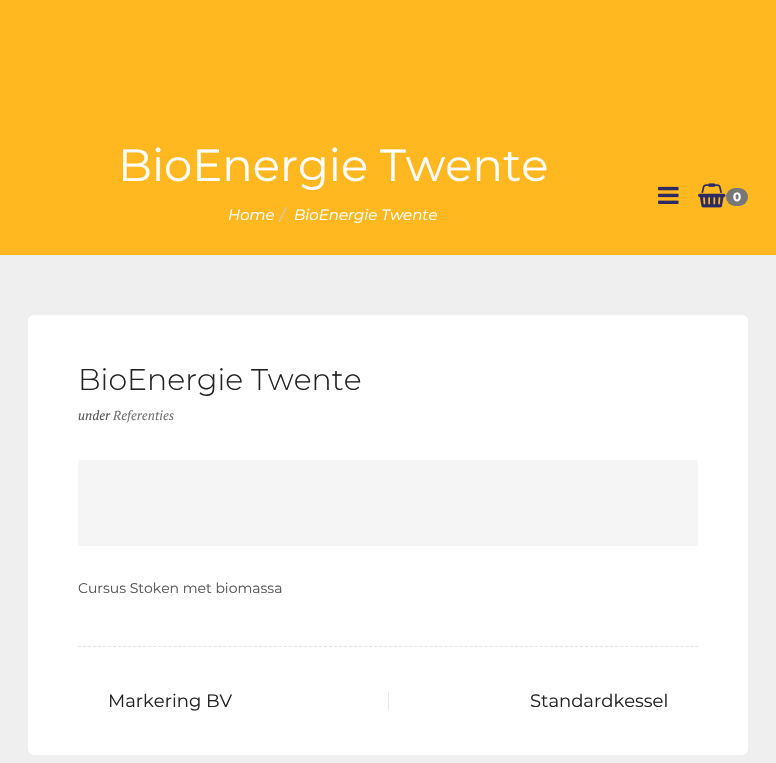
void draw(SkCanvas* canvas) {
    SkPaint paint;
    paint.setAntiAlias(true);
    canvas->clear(0xFFEFEFEF);
    paint.setColor(0xFFFFB820);
    canvas->drawRect(SkRect::MakeXYWH(0, 0, 776, 255), paint);
    SkFont font1(fontMgr->matchFamilyStyle("Montserrat", SkFontStyle::Normal()), 45);
    font1.setSubpixel(true);
    paint.setColor(0xFFFFFFFF);
    canvas->drawString("BioEnergie Twente", 118, 181, font1, paint);
    SkFont font2(fontMgr->matchFamilyStyle("Montserrat", SkFontStyle::Italic()), 15);
    font2.setSubpixel(true);
    canvas->drawString("Home", 228, 220, font2, paint);
    paint.setColor(0xFFCCCCCC);
    canvas->drawString("/", 280, 220, font2, paint);
    paint.setColor(0xFFFFFFFF);
    canvas->drawString("BioEnergie Twente", 294, 220, font2, paint);
    canvas->drawImageRect(SkImages::DeferredFromEncodedData(SkData::MakeFromFileName("img1.png")), SkRect::MakeXYWH(658, 186, 21, 18), SkSamplingOptions());
    canvas->drawImageRect(SkImages::DeferredFromEncodedData(SkData::MakeFromFileName("img2.png")), SkRect::MakeXYWH(698, 183, 28, 25), SkSamplingOptions());
    paint.setColor(0xFF777777);
    canvas->drawRoundRect(SkRect::MakeXYWH(726, 188, 22, 18), 9, 9, paint);
    SkFont font3(fontMgr->matchFamilyStyle("Montserrat", SkFontStyle::Bold()), 12);
    font3.setSubpixel(true);
    paint.setColor(0xFFFFFFFF);
    canvas->drawString("0", 733, 201, font3, paint);
    canvas->drawRoundRect(SkRect::MakeXYWH(28, 315, 720, 440), 6, 6, paint);
    SkFont font4(fontMgr->matchFamilyStyle("Montserrat", SkFontStyle(300, SkFontStyle::kNormal_Width, SkFontStyle::kUpright_Slant)), 30);
    font4.setSubpixel(true);
    paint.setColor(0xFF222222);
    canvas->drawString("BioEnergie Twente", 78, 390, font4, paint);
    SkFont font5(fontMgr->matchFamilyStyle("PT Serif", SkFontStyle::Italic()), 13);
    font5.setSubpixel(true);
    paint.setColor(0xFF555555);
    canvas->drawString("under", 78, 420, font5, paint);
    paint.setColor(0xFF757575);
    canvas->drawString("Referenties", 113, 420, font5, paint);
    paint.setColor(0xFFF5F5F5);
    canvas->drawRoundRect(SkRect::MakeXYWH(78, 460, 620, 86), 2, 2, paint);
    SkFont font6(fontMgr->matchFamilyStyle("Montserrat", SkFontStyle::Normal()), 14);
    font6.setSubpixel(true);
    paint.setColor(0xFF555555);
    canvas->drawString("Cursus Stoken met biomassa", 78, 593, font6, paint);
    paint.setStyle(SkPaint::kStroke_Style);
    paint.setStrokeWidth(1);
    paint.setColor(0xFFE5E5E5);
    paint.setPathEffect(SkDashPathEffect::Make({{3, 2.02f}}, 0));
    canvas->drawPath(SkPathBuilder().moveTo(78, 646.5f).lineTo(698, 646.5f).detach(), paint);
    paint.setPathEffect(nullptr);
    SkFont font7(fontMgr->matchFamilyStyle("Montserrat", SkFontStyle::Normal()), 18);
    font7.setSubpixel(true);
    paint.setStyle(SkPaint::kFill_Style);
    paint.setColor(0xFF222222);
    canvas->drawString("Markering BV", 108, 707, font7, paint);
    paint.setColor(0xFFE8E8E8);
    canvas->drawRect(SkRect::MakeXYWH(388, 692, 1, 18), paint);
    paint.setColor(0xFF222222);
    canvas->drawString("Standardkessel", 530, 707, font7, paint);
}
